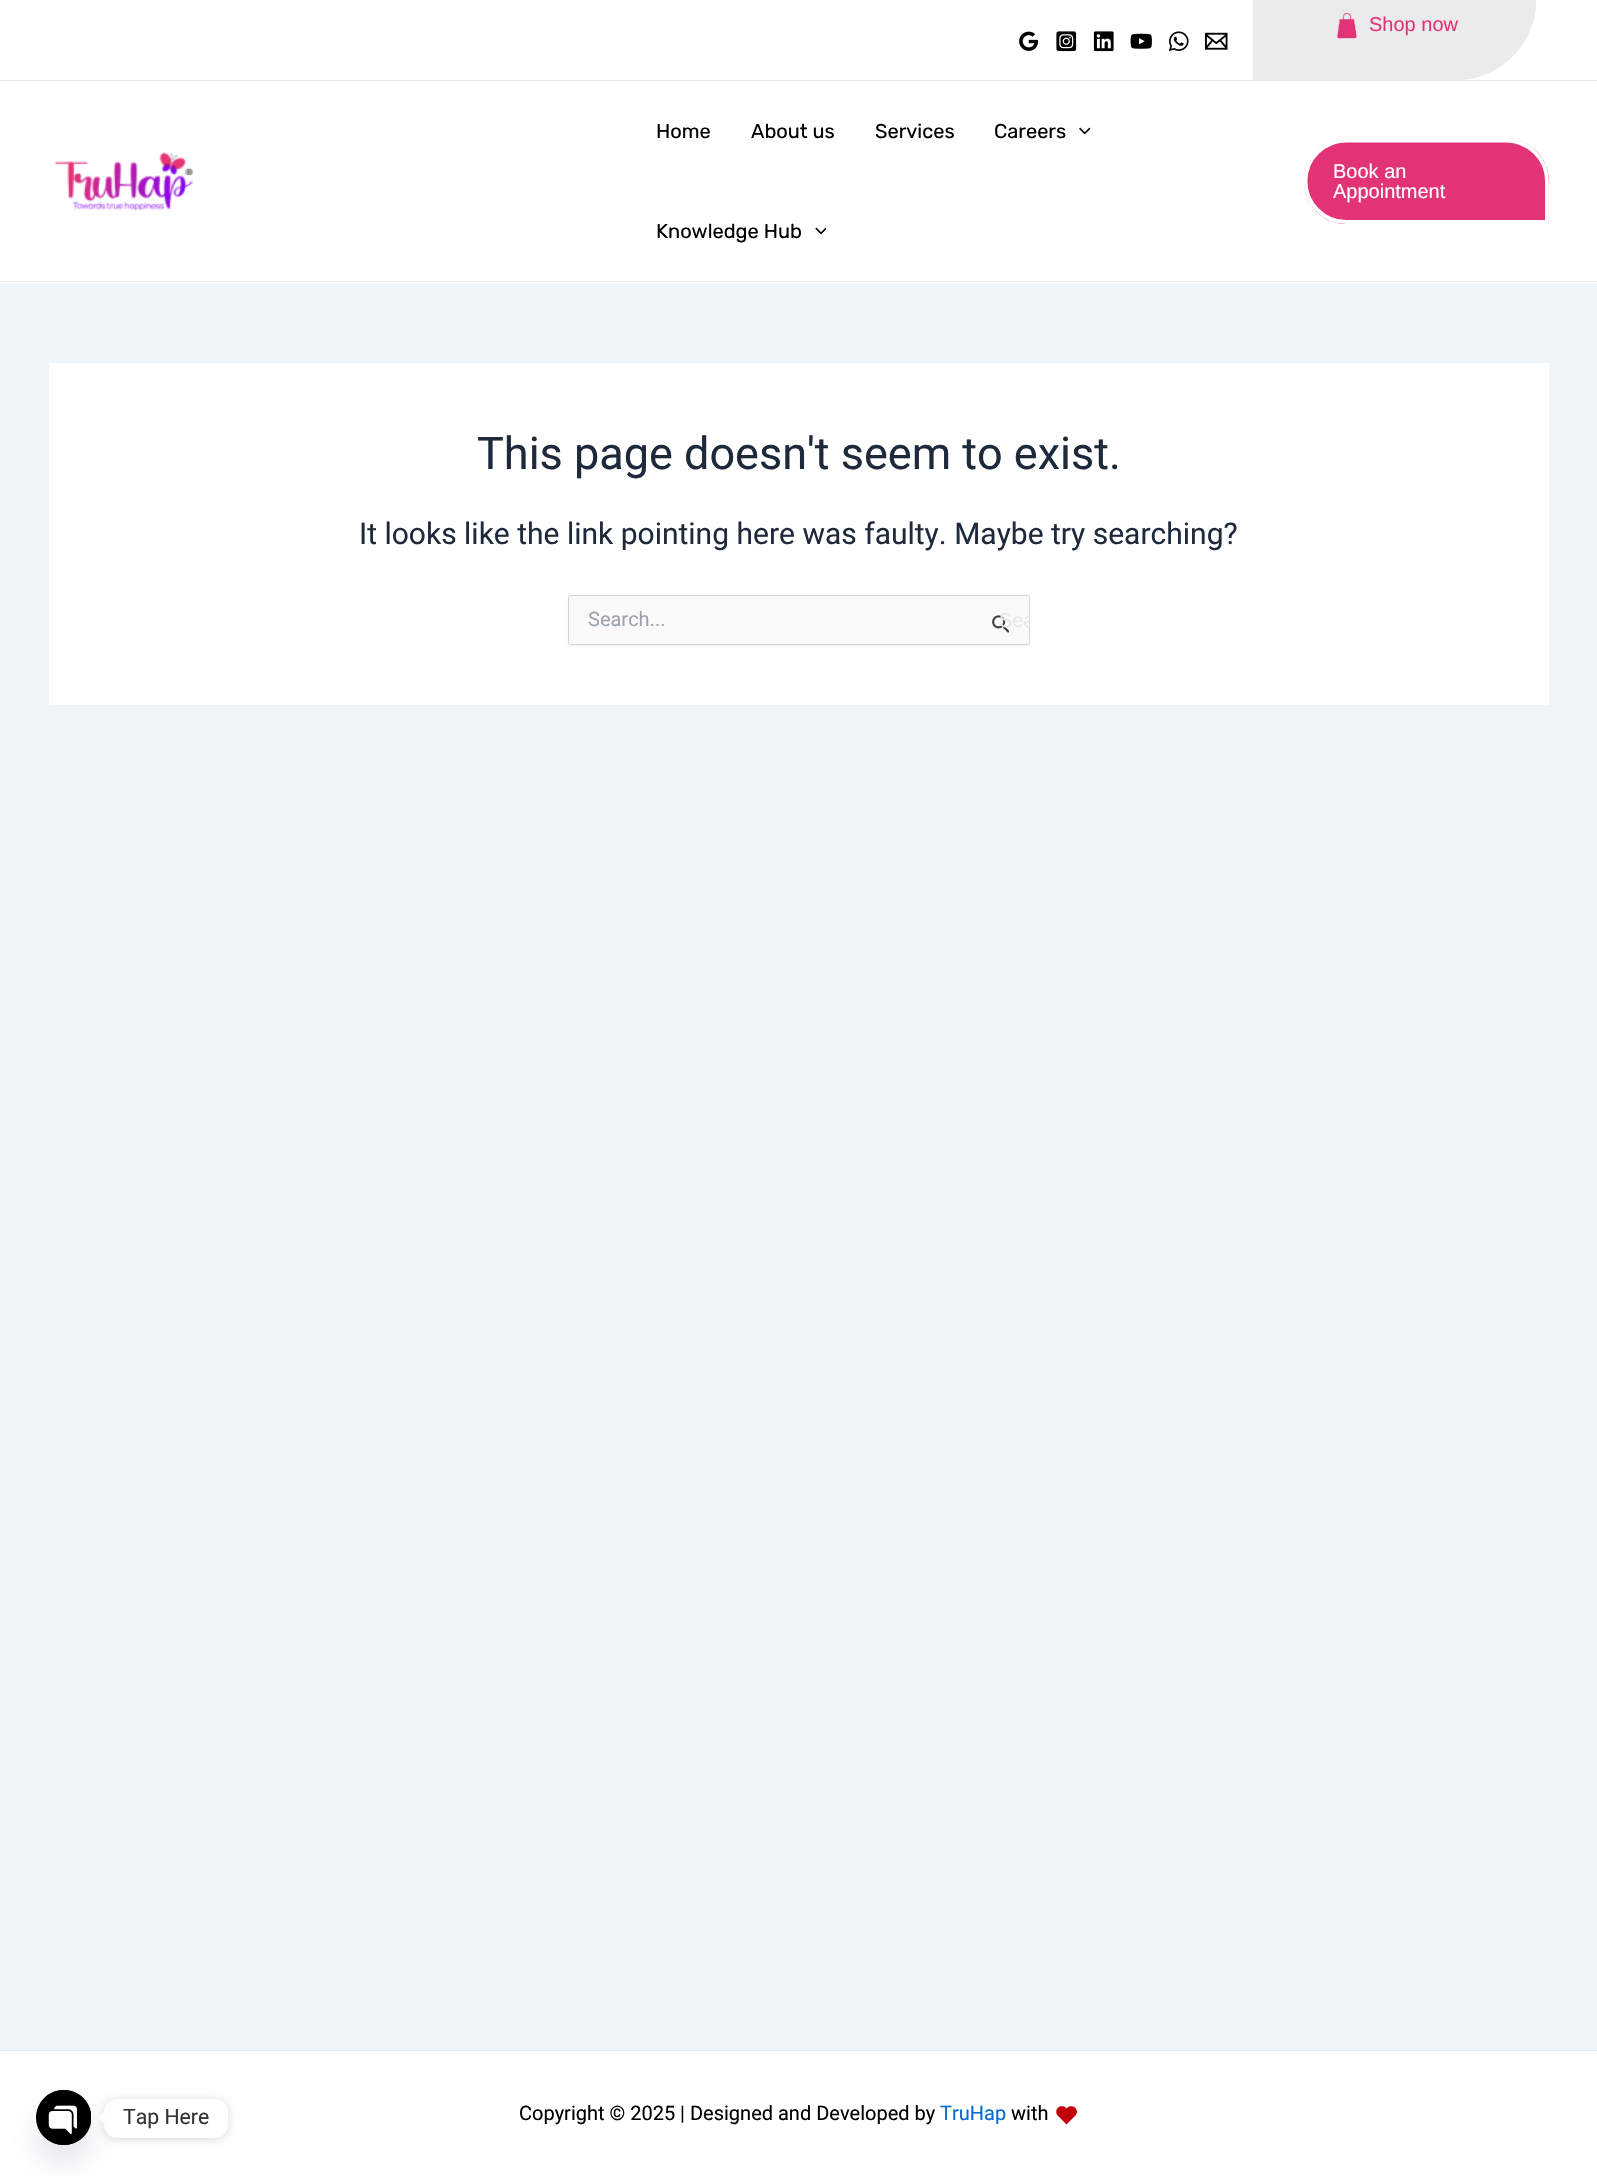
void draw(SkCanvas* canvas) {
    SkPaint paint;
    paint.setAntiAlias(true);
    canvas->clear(0xFFF0F5FA);
    paint.setColor(0xFFFFFFFF);
    canvas->drawRect(SkRect::MakeXYWH(0, 2051, 1597, 125), paint);
    paint.setColor(0x26000000);
    paint.setMaskFilter(SkMaskFilter::MakeBlur(kNormal_SkBlurStyle, 5));
    canvas->drawRoundRect(SkRect::MakeXYWH(104, 2100, 124, 39), 13, 13, paint);
    paint.setMaskFilter(nullptr);
    paint.setColor(0xFFFFFFFF);
    canvas->drawRoundRect(SkRect::MakeXYWH(104, 2099, 124, 39), 13, 13, paint);
    canvas->drawPath(SkPathBuilder().moveTo(104, 2112).lineTo(104, 2124.5f).lineTo(97.5f, 2118).close().detach(), paint);
    paint.setColor(0x2949687E);
    paint.setMaskFilter(SkMaskFilter::MakeBlur(kNormal_SkBlurStyle, 15));
    canvas->drawRoundRect(SkRect::MakeXYWH(36, 2110, 55, 55), 27.5f, 27.5f, paint);
    paint.setMaskFilter(nullptr);
    paint.setColor(0xFF000000);
    canvas->drawCircle(63.5f, 2117.5f, 27.5f, paint);
    canvas->drawImageRect(SkImages::DeferredFromEncodedData(SkData::MakeFromFileName("img1.png")), SkRect::MakeXYWH(36, 2090, 55, 55), SkSamplingOptions());
    SkFont font1(fontMgr->matchFamilyStyle("Roboto", SkFontStyle::Normal()), 21.25f);
    font1.setSubpixel(true);
    paint.setColor(0xFF333333);
    canvas->drawString("Tap Here", 123, 2124, font1, paint);
    paint.setColor(0xFFFFFFFF);
    canvas->drawRect(SkRect::MakeXYWH(0, 0, 1597, 80), paint);
    paint.setColor(0xFFEAEAEA);
    canvas->drawRect(SkRect::MakeXYWH(0, 80, 1597, 1), paint);
    paint.setColor(0xFFEBEBEB);
    canvas->drawPath(SkPathBuilder().moveTo(1253, 0).lineTo(1536, 0).cubicTo(1536, 44, 1500, 80, 1456, 80).lineTo(1253, 80).close().detach(), paint);
    canvas->drawPath(SkPathBuilder(SkPathFillType::kEvenOdd).moveTo(1253, 0).lineTo(1536, 0).cubicTo(1536, 44, 1500, 80, 1456, 80).lineTo(1253, 80).close().moveTo(1281, 0).lineTo(1508, 0).cubicTo(1508, 28, 1485, 51, 1456, 51).lineTo(1281, 51).close().detach(), paint);
    canvas->drawImageRect(SkImages::DeferredFromEncodedData(SkData::MakeFromFileName("img2.png")), SkRect::MakeXYWH(1337, 12, 20, 27), SkSamplingOptions());
    SkFont font2(fontMgr->matchFamilyStyle("Liberation Sans", SkFontStyle::Normal()), 20);
    font2.setSubpixel(true);
    paint.setColor(0xFFE33377);
    canvas->drawString("Shop now", 1369, 31, font2, paint);
    canvas->drawImageRect(SkImages::DeferredFromEncodedData(SkData::MakeFromFileName("img3.png")), SkRect::MakeXYWH(1019, 31, 19, 20), SkSamplingOptions());
    canvas->drawImageRect(SkImages::DeferredFromEncodedData(SkData::MakeFromFileName("img4.png")), SkRect::MakeXYWH(1056, 31, 21, 21), SkSamplingOptions());
    canvas->drawImageRect(SkImages::DeferredFromEncodedData(SkData::MakeFromFileName("img5.png")), SkRect::MakeXYWH(1093, 31, 21, 21), SkSamplingOptions());
    canvas->drawImageRect(SkImages::DeferredFromEncodedData(SkData::MakeFromFileName("img6.png")), SkRect::MakeXYWH(1130, 33, 22, 16), SkSamplingOptions());
    canvas->drawImageRect(SkImages::DeferredFromEncodedData(SkData::MakeFromFileName("img7.png")), SkRect::MakeXYWH(1169, 31, 20, 20), SkSamplingOptions());
    canvas->drawImageRect(SkImages::DeferredFromEncodedData(SkData::MakeFromFileName("img8.png")), SkRect::MakeXYWH(1205, 32, 23, 18), SkSamplingOptions());
    paint.setColor(0xFFFFFFFF);
    canvas->drawRect(SkRect::MakeXYWH(0, 81, 1597, 202), paint);
    paint.setColor(0xFFEAEAEA);
    canvas->drawRect(SkRect::MakeXYWH(0, 281, 1597, 1), paint);
    canvas->drawImageRect(SkImages::DeferredFromEncodedData(SkData::MakeFromFileName("img9.png")), SkRect::MakeXYWH(54, 152, 140, 59), SkSamplingOptions());
    SkFont font3(fontMgr->matchFamilyStyle("Rubik", SkFontStyle(300, SkFontStyle::kNormal_Width, SkFontStyle::kUpright_Slant)), 20);
    font3.setSubpixel(true);
    paint.setColor(0xFF000000);
    canvas->drawString("Home", 656, 138, font3, paint);
    canvas->drawString("About us", 751, 138, font3, paint);
    canvas->drawString("Services", 875, 138, font3, paint);
    canvas->drawString("Careers", 994, 138, font3, paint);
    canvas->drawImageRect(SkImages::DeferredFromEncodedData(SkData::MakeFromFileName("img10.png")), SkRect::MakeXYWH(1079, 127, 12, 8), SkSamplingOptions());
    canvas->drawString("Knowledge Hub", 656, 238, font3, paint);
    canvas->drawImageRect(SkImages::DeferredFromEncodedData(SkData::MakeFromFileName("img11.png")), SkRect::MakeXYWH(815, 227, 11, 8), SkSamplingOptions());
    paint.setColor(0xFFE33377);
    canvas->drawPath(SkPathBuilder().moveTo(1346.5f, 139).lineTo(1506.5f, 139).cubicTo(1530, 139, 1549, 158, 1549, 181.5f).lineTo(1549, 223).cubicTo(1549, 223.5f, 1548.5f, 224, 1548, 224).lineTo(1346.5f, 224).cubicTo(1323, 224, 1304, 205, 1304, 181.5f).cubicTo(1304, 158, 1323, 139, 1346.5f, 139).close().detach(), paint);
    paint.setStyle(SkPaint::kStroke_Style);
    paint.setStrokeWidth(3.8f);
    paint.setColor(0xFFFFFFFF);
    canvas->drawPath(SkPathBuilder().moveTo(1346, 140.5f).lineTo(1506, 140.5f).cubicTo(1528.5f, 140.5f, 1547, 159, 1547, 181).lineTo(1547, 222).lineTo(1346, 222).cubicTo(1324, 222, 1305.5f, 203.5f, 1305.5f, 181).cubicTo(1305.5f, 159, 1324, 140.5f, 1346, 140.5f).close().detach(), paint);
    paint.setStyle(SkPaint::kFill_Style);
    canvas->drawString("Book an", 1333, 178, font2, paint);
    canvas->drawString("Appointment", 1333, 198, font2, paint);
    canvas->drawRect(SkRect::MakeXYWH(49, 363, 1500, 342), paint);
    SkFont font4(fontMgr->matchFamilyStyle("Roboto", SkFontStyle::Normal()), 45);
    font4.setSubpixel(true);
    paint.setColor(0xFF1E293B);
    canvas->drawString("This page doesn't seem to exist.", 477, 469, font4, paint);
    SkFont font5(fontMgr->matchFamilyStyle("Roboto", SkFontStyle::Normal()), 30);
    font5.setSubpixel(true);
    canvas->drawString("It looks like the link pointing here was faulty. Maybe try searching?", 359, 544, font5, paint);
    paint.setColor(0x0D000000);
    paint.setMaskFilter(SkMaskFilter::MakeBlur(kNormal_SkBlurStyle, 1));
    canvas->drawRoundRect(SkRect::MakeXYWH(568, 596, 462, 50), 2.5f, 2.5f, paint);
    paint.setMaskFilter(nullptr);
    paint.setColor(0xFFFAFAFA);
    canvas->drawRoundRect(SkRect::MakeXYWH(568.5f, 595.5f, 461, 49), 2, 2, paint);
    paint.setStyle(SkPaint::kStroke_Style);
    paint.setStrokeWidth(1);
    paint.setColor(0xFFD1D5DB);
    canvas->drawRoundRect(SkRect::MakeXYWH(568.5f, 595.5f, 461, 49), 2, 2, paint);
    SkFont font6(fontMgr->matchFamilyStyle("Roboto", SkFontStyle::Normal()), 20);
    font6.setSubpixel(true);
    paint.setStyle(SkPaint::kFill_Style);
    paint.setColor(0xFF9CA3AF);
    canvas->drawString("Search...", 588, 626, font6, paint);
    canvas->drawImageRect(SkImages::DeferredFromEncodedData(SkData::MakeFromFileName("img12.png")), SkRect::MakeXYWH(992, 615, 17, 18), SkSamplingOptions());
    canvas->save();
    canvas->clipPath(SkPathBuilder().moveTo(976.5f, 595).lineTo(1027.5f, 595).cubicTo(1029, 595, 1030, 596, 1030, 597.5f).lineTo(1030, 645.5f).cubicTo(1030, 647, 1029, 648, 1027.5f, 648).lineTo(976.5f, 648).cubicTo(975, 648, 974, 647, 974, 645.5f).lineTo(974, 597.5f).cubicTo(974, 596, 975, 595, 976.5f, 595).close().detach(), true);
    paint.setColor(0xFFE8E8E8);
    canvas->drawString("Sea", 999, 627, font2, paint);
    canvas->restore();
    paint.setColor(0xFFEAEAEA);
    canvas->drawRect(SkRect::MakeXYWH(0, 2050, 1597, 1), paint);
    paint.setColor(0xFF000000);
    canvas->drawString("Copyright © 2025 | Designed and Developed by", 519, 2120, font6, paint);
    paint.setColor(0xFF046BD2);
    canvas->drawString("TruHap", 940, 2120, font6, paint);
    paint.setColor(0xFF000000);
    canvas->drawString("with", 1011, 2120, font6, paint);
    canvas->drawImageRect(SkImages::DeferredFromEncodedData(SkData::MakeFromFileName("img13.png")), SkRect::MakeXYWH(1055, 2106, 23, 19), SkSamplingOptions());
}
